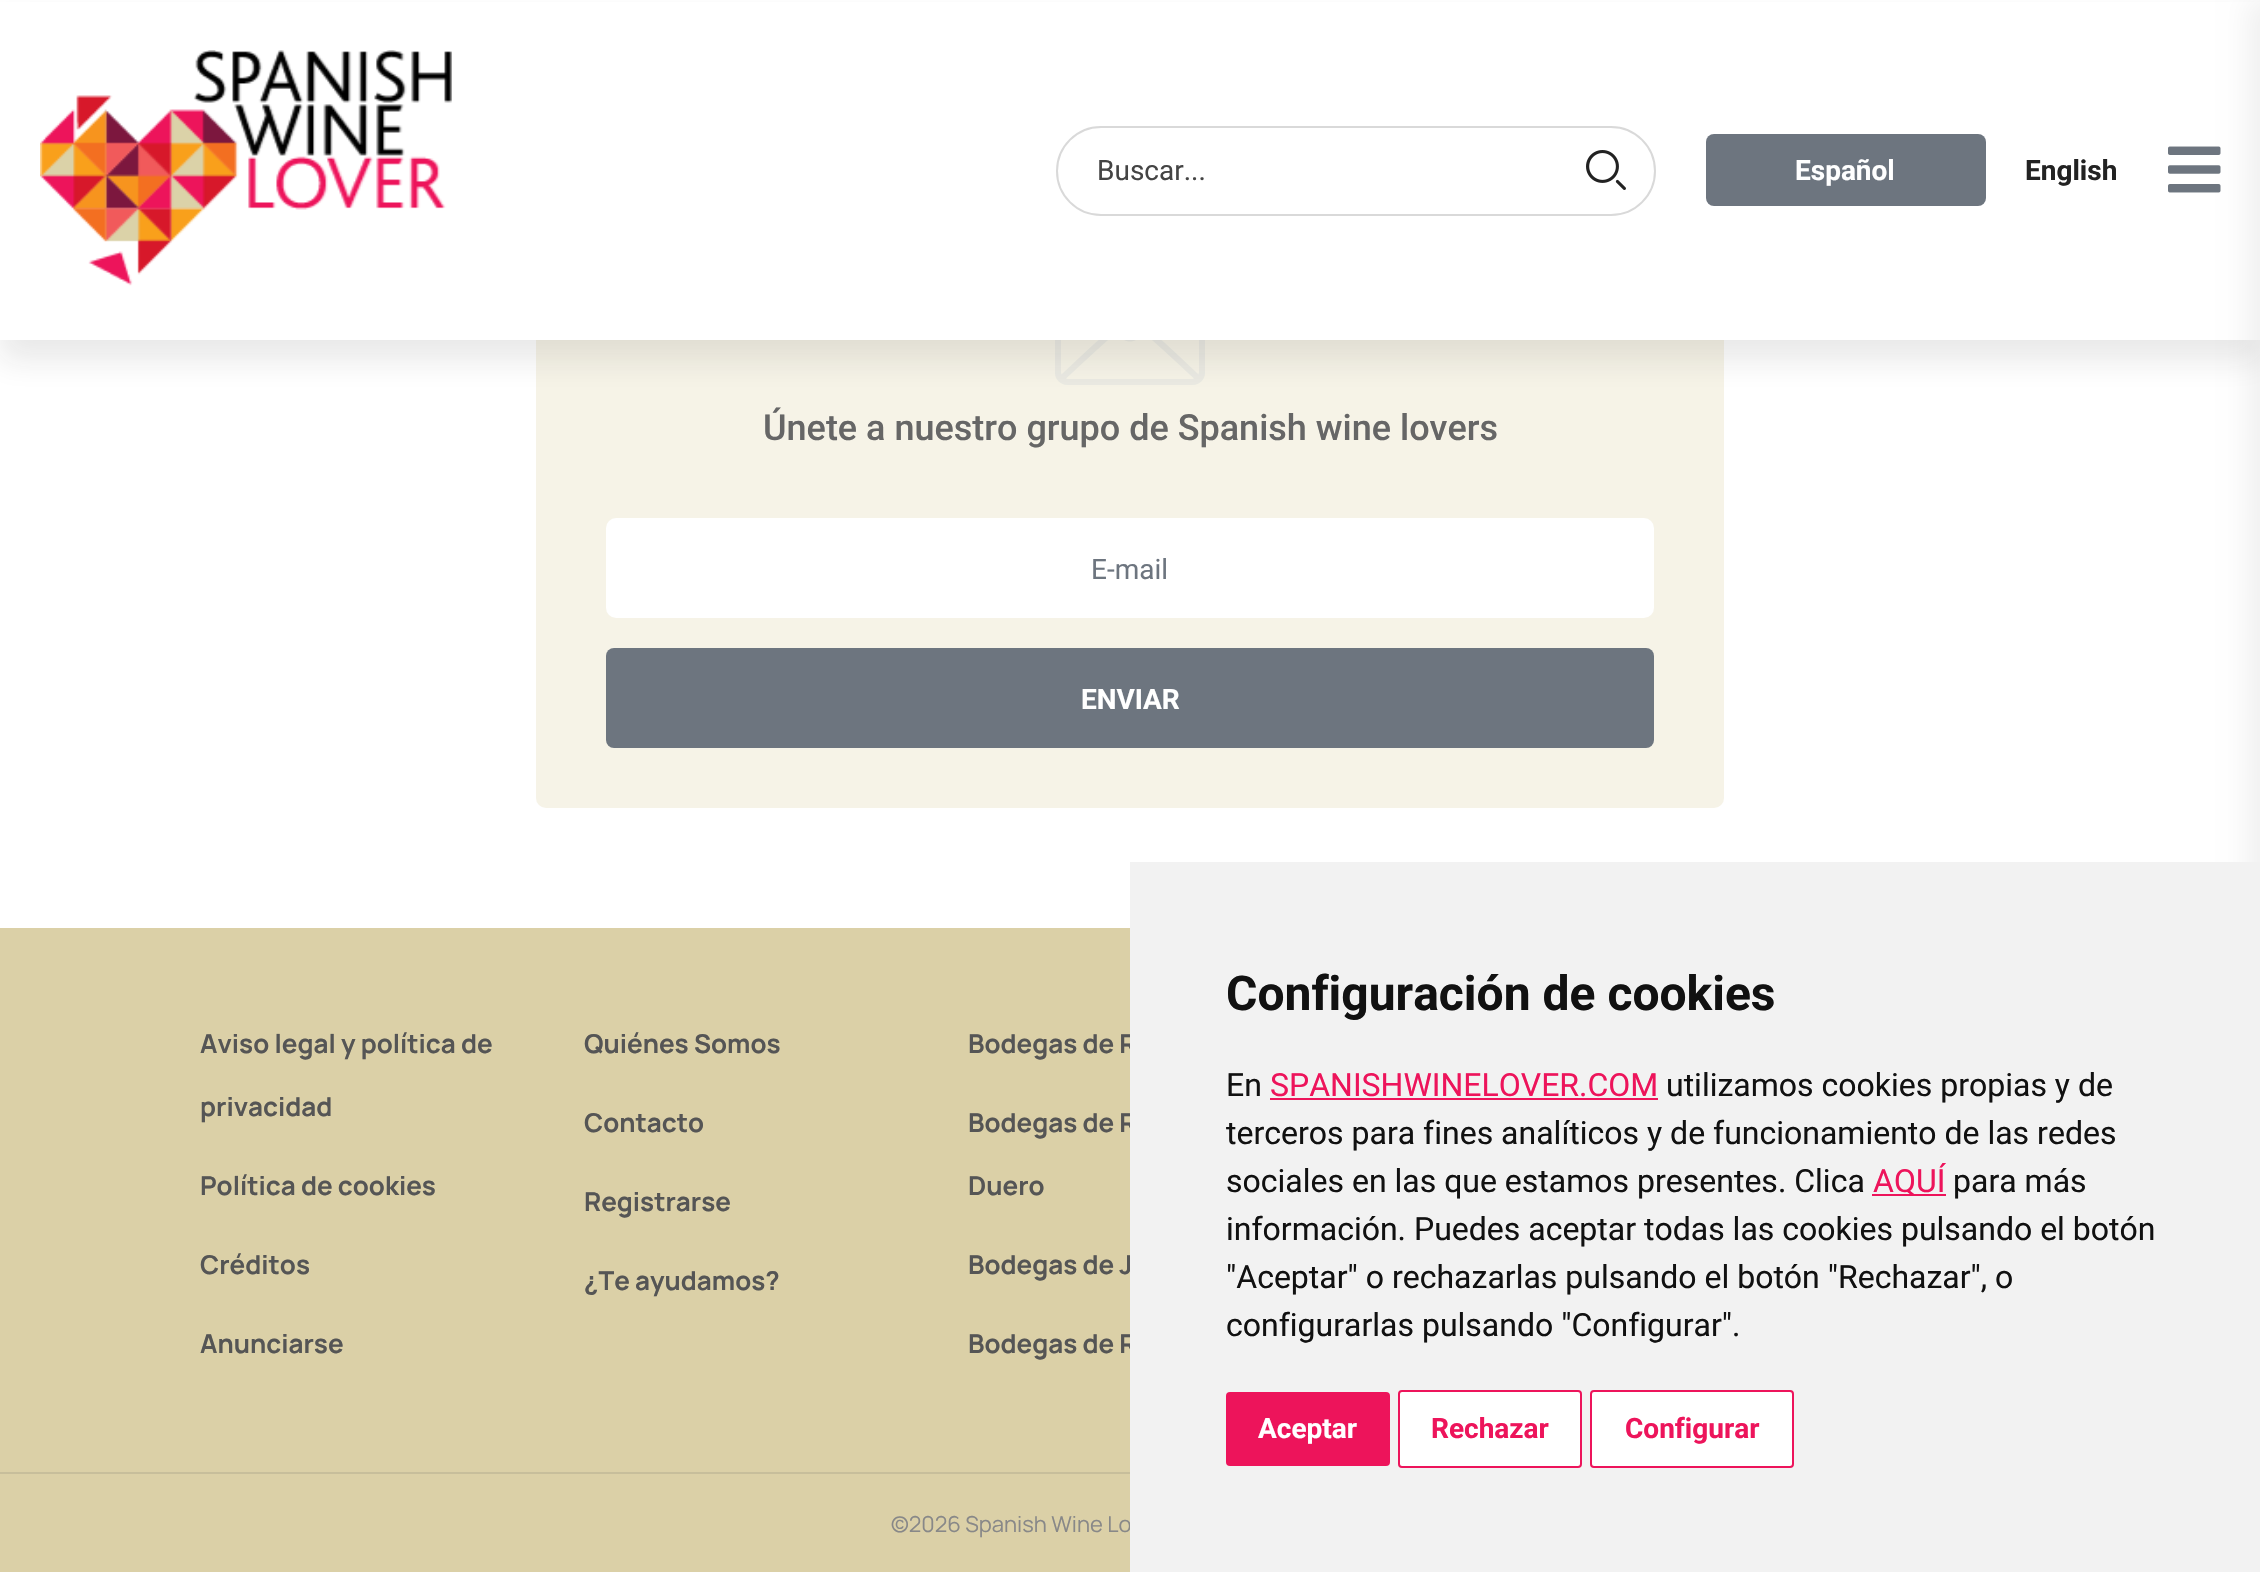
void draw(SkCanvas* canvas) {
    SkPaint paint;
    paint.setAntiAlias(true);
    canvas->clear(0xFFFFFFFF);
    paint.setColor(0xFFF6F3E7);
    canvas->drawRoundRect(SkRect::MakeXYWH(536, 198, 1188, 610), 10, 10, paint);
    canvas->drawImageRect(SkImages::DeferredFromEncodedData(SkData::MakeFromFileName("img4.png")), SkRect::MakeXYWH(1055, 340, 150, 45), SkSamplingOptions());
    paint.setColor(0x1A191919);
    paint.setMaskFilter(SkMaskFilter::MakeBlur(kNormal_SkBlurStyle, 15));
    canvas->drawRect(SkRect::MakeXYWH(0, 20, 2260, 340), paint);
    paint.setMaskFilter(nullptr);
    paint.setColor(0xFFFFFFFF);
    canvas->drawRect(SkRect::MakeXYWH(0, 2, 2260, 338), paint);
    canvas->drawImageRect(SkImages::DeferredFromEncodedData(SkData::MakeFromFileName("img1.png")), SkRect::MakeXYWH(40, 50, 412, 236), SkSamplingOptions());
    paint.setStyle(SkPaint::kStroke_Style);
    paint.setStrokeWidth(2);
    paint.setColor(0xFFD9D9D9);
    canvas->drawRoundRect(SkRect::MakeXYWH(1057, 127, 598, 88), 44, 44, paint);
    SkFont font1(fontMgr->matchFamilyStyle("Roboto", SkFontStyle::Normal()), 28);
    font1.setSubpixel(true);
    paint.setStyle(SkPaint::kFill_Style);
    paint.setColor(0xFF444444);
    canvas->drawString("Buscar...", 1097, 180, font1, paint);
    canvas->drawImageRect(SkImages::DeferredFromEncodedData(SkData::MakeFromFileName("img2.png")), SkRect::MakeXYWH(1586, 150, 40, 40), SkSamplingOptions());
    paint.setColor(0xFF6D757F);
    canvas->drawRoundRect(SkRect::MakeXYWH(1706, 134, 280, 72), 8, 8, paint);
    SkFont font2(fontMgr->matchFamilyStyle("Roboto", SkFontStyle::Bold()), 28);
    font2.setSubpixel(true);
    paint.setColor(0xFFFFFFFF);
    canvas->drawString("Español", 1795, 180, font2, paint);
    paint.setColor(0xFF222222);
    canvas->drawString("English", 2025, 180, font2, paint);
    canvas->drawImageRect(SkImages::DeferredFromEncodedData(SkData::MakeFromFileName("img3.png")), SkRect::MakeXYWH(2168, 146, 53, 47), SkSamplingOptions());
    paint.setColor(0x0F000000);
    paint.setMaskFilter(SkMaskFilter::MakeBlur(kNormal_SkBlurStyle, 14));
    canvas->drawRect(SkRect::MakeXYWH(2248, 0, 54, 1572), paint);
    paint.setMaskFilter(nullptr);
    SkFont font3(fontMgr->matchFamilyStyle("Roboto", SkFontStyle(500, SkFontStyle::kNormal_Width, SkFontStyle::kUpright_Slant)), 36);
    font3.setSubpixel(true);
    paint.setColor(0xFF666666);
    canvas->drawString("Únete a nuestro grupo de Spanish wine lovers", 763, 440, font3, paint);
    paint.setColor(0xFFFFFFFF);
    canvas->drawRoundRect(SkRect::MakeXYWH(606, 518, 1048, 100), 10, 10, paint);
    paint.setColor(0xFF6D757F);
    canvas->drawString("E-mail", 1091, 579, font1, paint);
    canvas->drawRoundRect(SkRect::MakeXYWH(606, 648, 1048, 100), 8, 8, paint);
    paint.setColor(0xFFFFFFFF);
    canvas->drawString("ENVIAR", 1081, 709, font2, paint);
    paint.setColor(0xFFDBD0A7);
    canvas->drawRect(SkRect::MakeXYWH(0, 928, 1130, 544), paint);
    SkFont font4(fontMgr->matchFamilyStyle("Manrope", SkFontStyle::Bold()), 26);
    font4.setSubpixel(true);
    paint.setColor(0xFF555555);
    canvas->drawString("Aviso legal y política de", 200, 1053, font4, paint);
    canvas->drawString("privacidad", 200, 1116, font4, paint);
    canvas->drawString("Política de cookies", 200, 1195, font4, paint);
    canvas->drawString("Créditos", 200, 1274, font4, paint);
    canvas->drawString("Anunciarse", 200, 1353, font4, paint);
    canvas->drawString("Quiénes Somos", 584, 1053, font4, paint);
    canvas->drawString("Contacto", 584, 1132, font4, paint);
    canvas->drawString("Registrarse", 584, 1211, font4, paint);
    canvas->drawString("¿Te ayudamos?", 584, 1290, font4, paint);
    canvas->drawString("Bodegas de R", 968, 1053, font4, paint);
    canvas->drawString("Bodegas de R", 968, 1132, font4, paint);
    canvas->drawString("Duero", 968, 1195, font4, paint);
    canvas->drawString("Bodegas de J", 968, 1274, font4, paint);
    canvas->drawString("Bodegas de R", 968, 1353, font4, paint);
    paint.setColor(0xFFDBD0A7);
    canvas->drawRect(SkRect::MakeXYWH(0, 1474, 1130, 98), paint);
    paint.setColor(0xFFC7BE9B);
    canvas->drawRect(SkRect::MakeXYWH(0, 1472, 1130, 2), paint);
    SkFont font5(fontMgr->matchFamilyStyle("Manrope", SkFontStyle::Normal()), 22);
    font5.setSubpixel(true);
    paint.setColor(0xFF888888);
    canvas->drawString("©2026 Spanish Wine Lo", 891, 1532, font5, paint);
    paint.setColor(0xFFF2F2F2);
    canvas->drawRect(SkRect::MakeXYWH(1130, 862, 1130, 710), paint);
    SkFont font6(fontMgr->matchFamilyStyle("Roboto", SkFontStyle::Bold()), 48);
    font6.setSubpixel(true);
    paint.setColor(0xFF111111);
    canvas->drawString("Configuración de cookies", 1226, 1010, font6, paint);
    SkFont font7(fontMgr->matchFamilyStyle("Roboto", SkFontStyle::Normal()), 32);
    font7.setSubpixel(true);
    canvas->drawString("En", 1226, 1096, font7, paint);
    paint.setColor(0xFFED145B);
    canvas->drawString("SPANISHWINELOVER.COM", 1270, 1096, font7, paint);
    canvas->drawRect(SkRect::MakeXYWH(1270, 1098, 388, 2), paint);
    paint.setColor(0xFF111111);
    canvas->drawString("utilizamos cookies propias y de", 1666, 1096, font7, paint);
    canvas->drawString("terceros para fines analíticos y de funcionamiento de las redes", 1226, 1144, font7, paint);
    canvas->drawString("sociales en las que estamos presentes. Clica", 1226, 1192, font7, paint);
    paint.setColor(0xFFED145B);
    canvas->drawRect(SkRect::MakeXYWH(1872, 1194, 74, 2), paint);
    canvas->drawString("AQUÍ", 1873, 1192, font7, paint);
    paint.setColor(0xFF111111);
    canvas->drawString("para más", 1953, 1192, font7, paint);
    canvas->drawString("información. Puedes aceptar todas las cookies pulsando el botón", 1226, 1240, font7, paint);
    canvas->drawString("\"Aceptar\" o rechazarlas pulsando el botón \"Rechazar\", o", 1226, 1288, font7, paint);
    canvas->drawString("configurarlas pulsando \"Configurar\".", 1226, 1336, font7, paint);
    paint.setColor(0xFFED145B);
    canvas->drawRoundRect(SkRect::MakeXYWH(1226, 1392, 164, 74), 4, 4, paint);
    paint.setColor(0xFFFFFFFF);
    canvas->drawString("Aceptar", 1258, 1438, font2, paint);
    canvas->drawRoundRect(SkRect::MakeXYWH(1399, 1391, 182, 76), 3, 3, paint);
    paint.setStyle(SkPaint::kStroke_Style);
    paint.setColor(0xFFED145B);
    canvas->drawRoundRect(SkRect::MakeXYWH(1399, 1391, 182, 76), 3, 3, paint);
    paint.setStyle(SkPaint::kFill_Style);
    canvas->drawString("Rechazar", 1431, 1438, font2, paint);
    paint.setColor(0xFFFFFFFF);
    canvas->drawRoundRect(SkRect::MakeXYWH(1591, 1391, 202, 76), 3, 3, paint);
    paint.setStyle(SkPaint::kStroke_Style);
    paint.setColor(0xFFED145B);
    canvas->drawRoundRect(SkRect::MakeXYWH(1591, 1391, 202, 76), 3, 3, paint);
    paint.setStyle(SkPaint::kFill_Style);
    canvas->drawString("Configurar", 1625, 1438, font2, paint);
}
